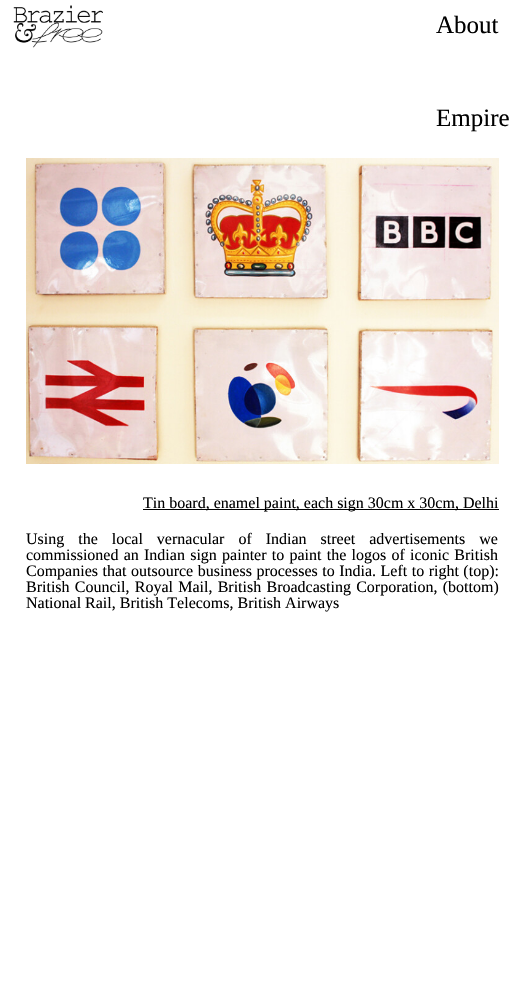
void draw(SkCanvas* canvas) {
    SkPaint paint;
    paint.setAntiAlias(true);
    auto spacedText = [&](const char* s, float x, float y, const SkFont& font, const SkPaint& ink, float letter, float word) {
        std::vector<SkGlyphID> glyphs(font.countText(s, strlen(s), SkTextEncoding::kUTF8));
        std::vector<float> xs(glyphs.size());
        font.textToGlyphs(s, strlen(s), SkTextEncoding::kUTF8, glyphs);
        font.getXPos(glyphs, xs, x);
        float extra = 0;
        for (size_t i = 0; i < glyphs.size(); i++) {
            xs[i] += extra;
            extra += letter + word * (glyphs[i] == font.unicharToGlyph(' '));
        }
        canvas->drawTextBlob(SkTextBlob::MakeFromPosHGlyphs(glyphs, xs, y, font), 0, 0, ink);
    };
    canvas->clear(0xFFFFFFFF);
    canvas->drawImageRect(SkImages::DeferredFromEncodedData(SkData::MakeFromFileName("img1.png")), SkRect::MakeXYWH(13, 5, 90, 43), SkSamplingOptions());
    SkFont font1(fontMgr->matchFamilyStyle("Liberation Serif", SkFontStyle::Normal()), 25);
    font1.setSubpixel(true);
    paint.setColor(0xFF000000);
    canvas->drawString("About", 436, 33, font1, paint);
    canvas->drawString("Empire", 436, 126, font1, paint);
    canvas->drawImageRect(SkImages::DeferredFromEncodedData(SkData::MakeFromFileName("img2.png")), SkRect::MakeXYWH(26, 158, 473, 306), SkSamplingOptions());
    canvas->drawRect(SkRect::MakeXYWH(143, 509, 356, 1), paint);
    SkFont font2(fontMgr->matchFamilyStyle("Liberation Serif", SkFontStyle::Normal()), 16);
    font2.setSubpixel(true);
    canvas->drawString("Tin board, enamel paint, each sign 30cm x 30cm, Delhi", 143, 508, font2, paint);
    spacedText("Using the local vernacular of Indian street advertisements we", 26, 544, font2, paint, 0, 10);
    spacedText("commissioned an Indian sign painter to paint the logos of iconic British", 26, 560, font2, paint, 0, 1.25f);
    spacedText("Companies that outsource business processes to India. Left to right (top):", 26, 576, font2, paint, 0, 0.5f);
    spacedText("British Council, Royal Mail, British Broadcasting Corporation, (bottom)", 26, 592, font2, paint, 0, 1.25f);
    canvas->drawString("National Rail, British Telecoms, British Airways", 26, 608, font2, paint);
}
